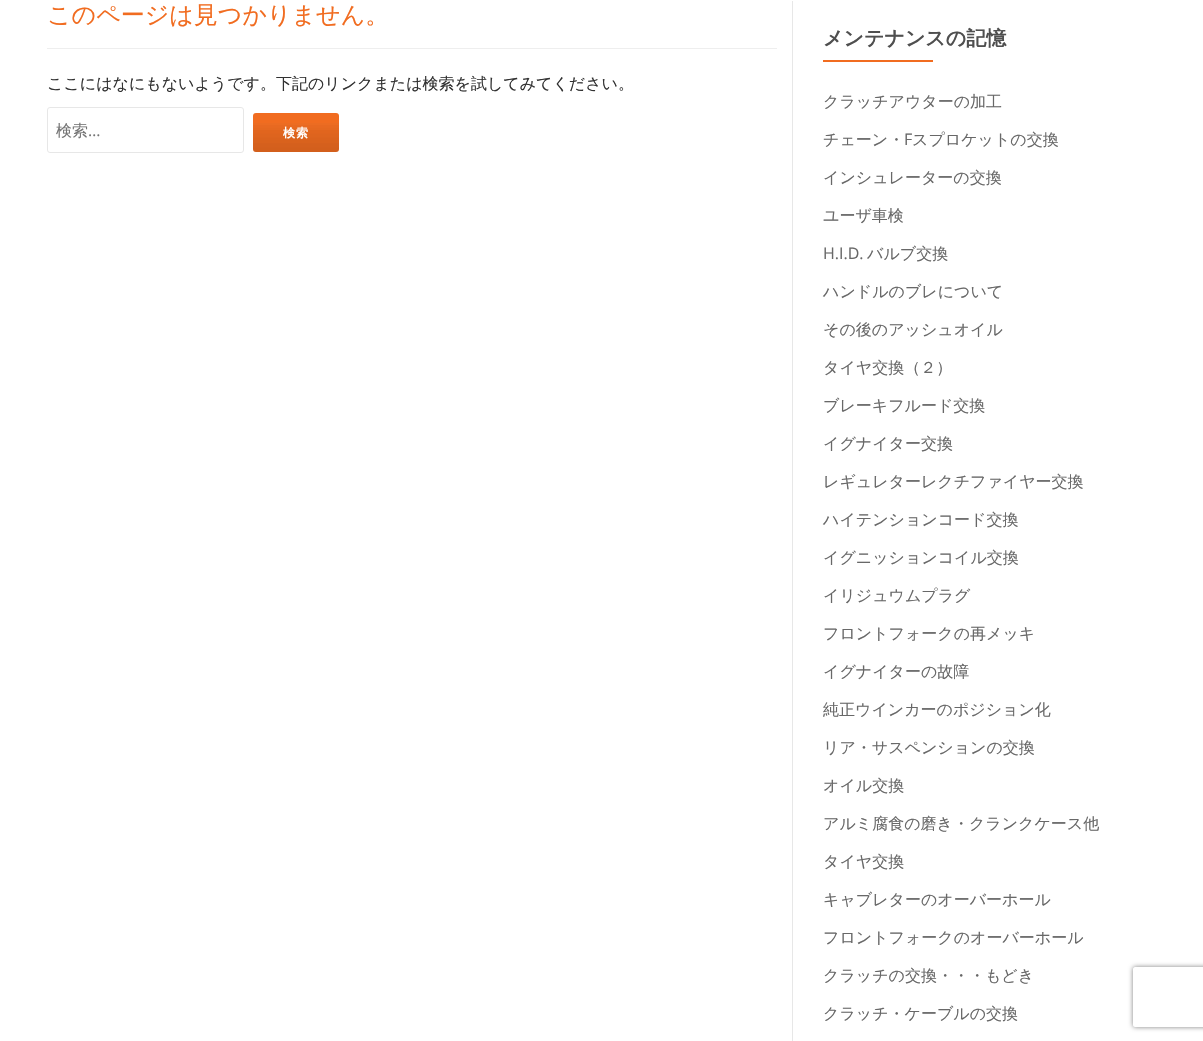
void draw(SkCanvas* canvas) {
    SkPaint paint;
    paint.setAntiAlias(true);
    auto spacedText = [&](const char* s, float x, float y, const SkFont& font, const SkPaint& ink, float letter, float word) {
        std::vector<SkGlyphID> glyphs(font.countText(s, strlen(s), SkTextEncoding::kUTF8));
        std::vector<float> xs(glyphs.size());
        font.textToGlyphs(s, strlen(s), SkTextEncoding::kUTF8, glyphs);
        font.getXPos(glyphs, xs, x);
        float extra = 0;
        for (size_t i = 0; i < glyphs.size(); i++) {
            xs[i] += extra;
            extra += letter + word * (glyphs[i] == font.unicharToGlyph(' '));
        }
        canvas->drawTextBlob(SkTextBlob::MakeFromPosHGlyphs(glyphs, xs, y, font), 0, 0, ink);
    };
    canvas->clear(0xFFFFFFFF);
    paint.setColor(0xFFEEEEEE);
    canvas->drawRect(SkRect::MakeXYWH(47, 48, 730, 1), paint);
    SkFont font1(fontMgr->matchFamilyStyle("WenQuanYi Zen Hei", SkFontStyle(500, SkFontStyle::kNormal_Width, SkFontStyle::kUpright_Slant)), 24);
    font1.setSubpixel(true);
    paint.setColor(0xFFF16C20);
    canvas->drawString("このページは見つかりません。", 47, 23, font1, paint);
    SkFont font2(fontMgr->matchFamilyStyle("WenQuanYi Zen Hei", SkFontStyle(500, SkFontStyle::kNormal_Width, SkFontStyle::kUpright_Slant)), 16);
    font2.setSubpixel(true);
    paint.setColor(0xFF313131);
    canvas->drawString("ここにはなにもないようです。下記のリンクまたは検索を試してみてください。", 47, 89, font2, paint);
    paint.setStyle(SkPaint::kStroke_Style);
    paint.setStrokeWidth(1);
    paint.setColor(0xFFE7E7E7);
    canvas->drawRoundRect(SkRect::MakeXYWH(47.5f, 107.5f, 196, 45), 2.5f, 2.5f, paint);
    paint.setStyle(SkPaint::kFill_Style);
    paint.setColor(0xFF757575);
    canvas->drawString("検索", 56, 136, font2, paint);
    SkFont font3(fontMgr->matchFamilyStyle("Open Sans", SkFontStyle::Normal()), 16);
    font3.setSubpixel(true);
    canvas->drawString("…", 88, 136, font3, paint);
    paint.setColor(0xFFF16C20);
    canvas->drawRoundRect(SkRect::MakeXYWH(253, 113, 86, 39), 3, 3, paint);
    canvas->drawImageRect(SkImages::DeferredFromEncodedData(SkData::MakeFromFileName("img1.png")), SkRect::MakeXYWH(253, 123, 86, 29), SkSamplingOptions());
    SkFont font4(fontMgr->matchFamilyStyle("WenQuanYi Zen Hei", SkFontStyle::Bold()), 12);
    font4.setSubpixel(true);
    paint.setColor(0xFFFFFFFF);
    spacedText("検索", 283, 137, font4, paint, 1, 0);
    paint.setColor(0xFFE7E7E7);
    canvas->drawRect(SkRect::MakeXYWH(792, 1, 1, 1040), paint);
    SkFont font5(fontMgr->matchFamilyStyle("WenQuanYi Zen Hei", SkFontStyle::Bold()), 20);
    font5.setSubpixel(true);
    paint.setColor(0xFF4F4F4F);
    canvas->drawString("メンテナンスの記憶", 823, 45, font5, paint);
    paint.setColor(0xFFF16C20);
    canvas->drawRect(SkRect::MakeXYWH(823, 60, 110, 2), paint);
    paint.setColor(0xFF686868);
    canvas->drawString("クラッチアウターの加工", 823, 107, font2, paint);
    canvas->drawString("チェーン・", 823, 145, font2, paint);
    canvas->drawString("F", 904, 145, font3, paint);
    canvas->drawString("スプロケットの交換", 912, 145, font2, paint);
    canvas->drawString("インシュレーターの交換", 823, 183, font2, paint);
    canvas->drawString("ユーザ車検", 823, 221, font2, paint);
    canvas->drawString("H.I.D.", 823, 259, font3, paint);
    canvas->drawString("バルブ交換", 867, 259, font2, paint);
    canvas->drawString("ハンドルのブレについて", 823, 297, font2, paint);
    canvas->drawString("その後のアッシュオイル", 823, 335, font2, paint);
    canvas->drawString("タイヤ交換（２）", 823, 373, font2, paint);
    canvas->drawString("ブレーキフルード交換", 823, 411, font2, paint);
    canvas->drawString("イグナイター交換", 823, 449, font2, paint);
    canvas->drawString("レギュレターレクチファイヤー交換", 823, 487, font2, paint);
    canvas->drawString("ハイテンションコード交換", 823, 525, font2, paint);
    canvas->drawString("イグニッションコイル交換", 823, 563, font2, paint);
    canvas->drawString("イリジュウムプラグ", 823, 601, font2, paint);
    canvas->drawString("フロントフォークの再メッキ", 823, 639, font2, paint);
    canvas->drawString("イグナイターの故障", 823, 677, font2, paint);
    canvas->drawString("純正ウインカーのポジション化", 823, 715, font2, paint);
    canvas->drawString("リア・サスペンションの交換", 823, 753, font2, paint);
    canvas->drawString("オイル交換", 823, 791, font2, paint);
    canvas->drawString("アルミ腐食の磨き・クランクケース他", 823, 829, font2, paint);
    canvas->drawString("タイヤ交換", 823, 867, font2, paint);
    canvas->drawString("キャブレターのオーバーホール", 823, 905, font2, paint);
    canvas->drawString("フロントフォークのオーバーホール", 823, 943, font2, paint);
    canvas->drawString("クラッチの交換・・・もどき", 823, 981, font2, paint);
    canvas->drawString("クラッチ・ケーブルの交換", 823, 1019, font2, paint);
    canvas->save();
    canvas->clipPath(SkPathBuilder(SkPathFillType::kEvenOdd).moveTo(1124, 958).lineTo(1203, 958).lineTo(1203, 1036).lineTo(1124, 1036).close().moveTo(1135, 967).lineTo(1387, 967).cubicTo(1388, 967, 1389, 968, 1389, 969).lineTo(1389, 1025).cubicTo(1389, 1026, 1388, 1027, 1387, 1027).lineTo(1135, 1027).cubicTo(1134, 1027, 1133, 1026, 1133, 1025).lineTo(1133, 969).cubicTo(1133, 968, 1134, 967, 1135, 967).close().detach(), true);
    paint.setColor(0xFF808080);
    paint.setMaskFilter(SkMaskFilter::MakeBlur(kNormal_SkBlurStyle, 2.5f));
    canvas->drawRoundRect(SkRect::MakeXYWH(1133, 967, 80, 60), 2, 2, paint);
    paint.setMaskFilter(nullptr);
    canvas->restore();
}
